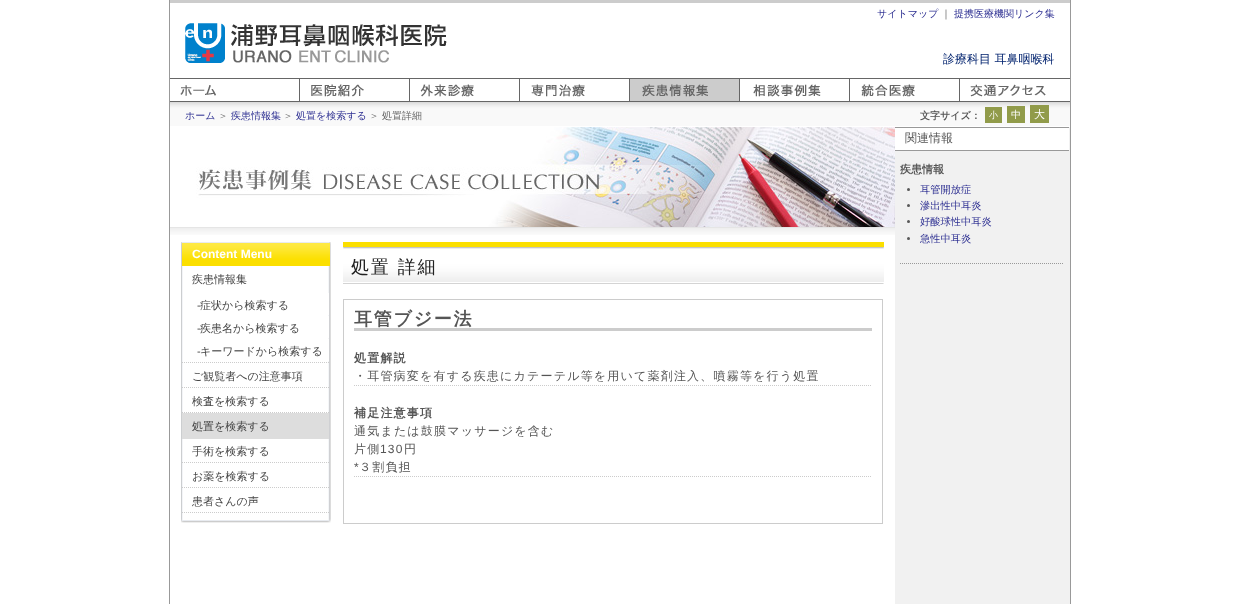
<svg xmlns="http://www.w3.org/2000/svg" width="1239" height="604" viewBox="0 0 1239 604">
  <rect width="100%" height="100%" fill="rgb(255,255,255)"/>
  <rect x="1070" y="0" width="1" height="604" fill="rgb(153,153,153)"/>
  <rect x="169" y="0" width="1" height="604" fill="rgb(153,153,153)"/>
  <text x="877" y="17" font-family="WenQuanYi Zen Hei" font-size="10" font-weight="500" fill="rgb(46,48,146)">サイトマップ</text>
  <text x="941" y="17" font-family="WenQuanYi Zen Hei" font-size="10" font-weight="500" fill="rgb(85,85,85)">｜</text>
  <text x="954" y="17" font-family="WenQuanYi Zen Hei" font-size="10" font-weight="500" fill="rgb(46,48,146)">提携医療機関リンク集</text>
  <rect x="170" y="0" width="900" height="3" fill="rgb(204,204,204)"/>
  <image x="185" y="23" width="262" height="40" href="pic1.png"/>
  <text x="943" y="63" font-family="WenQuanYi Zen Hei" font-size="12" font-weight="500" fill="rgb(1,34,110)">診療科目 耳鼻咽喉科</text>
  <image x="170" y="78" width="129" height="24" href="pic2.png"/>
  <image x="299" y="78" width="110" height="24" href="pic3.png"/>
  <image x="409" y="78" width="110" height="24" href="pic4.png"/>
  <image x="519" y="78" width="110" height="24" href="pic5.png"/>
  <image x="629" y="78" width="110" height="24" href="pic6.png"/>
  <image x="739" y="78" width="110" height="24" href="pic7.png"/>
  <image x="849" y="78" width="110" height="24" href="pic8.png"/>
  <image x="959" y="78" width="111" height="24" href="pic9.png"/>
  <image x="170" y="102" width="900" height="24" href="pic10.png"/>
  <text x="185" y="119" font-family="WenQuanYi Zen Hei" font-size="10" font-weight="500" fill="rgb(46,48,146)">ホーム</text>
  <text x="218" y="119" font-family="WenQuanYi Zen Hei" font-size="10" font-weight="500" fill="rgb(102,102,102)">＞</text>
  <text x="231" y="119" font-family="WenQuanYi Zen Hei" font-size="10" font-weight="500" fill="rgb(46,48,146)">疾患情報集</text>
  <text x="283" y="119" font-family="WenQuanYi Zen Hei" font-size="10" font-weight="500" fill="rgb(102,102,102)">＞</text>
  <text x="296" y="119" font-family="WenQuanYi Zen Hei" font-size="10" font-weight="500" fill="rgb(46,48,146)">処置を検索する</text>
  <text x="369" y="119" font-family="WenQuanYi Zen Hei" font-size="10" font-weight="500" fill="rgb(102,102,102)">＞ 処置詳細</text>
  <text x="920" y="119" font-family="WenQuanYi Zen Hei" font-size="10" font-weight="bold" fill="rgb(85,85,85)">文字サイズ：</text>
  <rect x="985" y="107" width="17" height="16" fill="rgb(145,155,74)"/>
  <text x="989" y="118" font-family="WenQuanYi Zen Hei" font-size="9" font-weight="500" fill="rgb(255,255,255)">小</text>
  <rect x="1007" y="106" width="18" height="17" fill="rgb(145,155,74)"/>
  <text x="1011" y="118" font-family="WenQuanYi Zen Hei" font-size="10" font-weight="500" fill="rgb(255,255,255)">中</text>
  <rect x="1030" y="105" width="19" height="18" fill="rgb(145,155,74)"/>
  <text x="1034" y="118" font-family="WenQuanYi Zen Hei" font-size="11" font-weight="500" fill="rgb(255,255,255)">大</text>
  <rect x="895" y="127" width="175" height="477" fill="rgb(241,241,241)"/>
  <rect x="895" y="128" width="174" height="22" fill="rgb(255,255,255)"/>
  <rect x="895" y="127" width="174" height="1" fill="rgb(153,153,153)"/>
  <rect x="895" y="150" width="174" height="1" fill="rgb(153,153,153)"/>
  <text x="905" y="142" font-family="WenQuanYi Zen Hei" font-size="12" font-weight="500" fill="rgb(85,85,85)">関連情報</text>
  <path d="M900 263.5H1064" fill="none" stroke="rgb(153,153,153)" stroke-dasharray="1 1"/>
  <text x="900" y="173" font-family="WenQuanYi Zen Hei" font-size="11" font-weight="bold" fill="rgb(85,85,85)">疾患情報</text>
  <circle cx="908.5" cy="189.5" r="1.5" fill="rgb(88,88,88)"/>
  <text x="920" y="193" font-family="WenQuanYi Zen Hei" font-size="10.25" font-weight="500" fill="rgb(46,48,146)">耳管開放症</text>
  <circle cx="908.5" cy="205.5" r="1.5" fill="rgb(88,88,88)"/>
  <text x="920" y="209" font-family="WenQuanYi Zen Hei" font-size="10.25" font-weight="500" fill="rgb(46,48,146)">滲出性中耳炎</text>
  <circle cx="908.5" cy="221.5" r="1.5" fill="rgb(88,88,88)"/>
  <text x="920" y="225" font-family="WenQuanYi Zen Hei" font-size="10.25" font-weight="500" fill="rgb(46,48,146)">好酸球性中耳炎</text>
  <circle cx="908.5" cy="238.5" r="1.5" fill="rgb(88,88,88)"/>
  <text x="920" y="242" font-family="WenQuanYi Zen Hei" font-size="10.25" font-weight="500" fill="rgb(46,48,146)">急性中耳炎</text>
  <image x="170" y="227" width="725" height="8" href="pic11.png"/>
  <image x="196" y="127" width="699" height="100" href="pic12.png"/>
  <image x="181" y="515" width="150" height="8" href="pic13.png"/>
  <image x="181" y="242" width="150" height="24" href="pic14.png"/>
  <text x="192" y="258" font-family="Liberation Sans" font-size="12" font-weight="bold" fill="rgb(255,255,255)">Content Menu</text>
  <image x="181" y="266" width="150" height="249" href="pic15.png"/>
  <path d="M182 362.5H329" fill="none" stroke="rgb(204,204,204)" stroke-dasharray="1 1"/>
  <text x="192" y="283" font-family="WenQuanYi Zen Hei" font-size="11" font-weight="500" fill="rgb(68,68,68)">疾患情報集</text>
  <rect x="328" y="293" width="1" height="22" fill="rgb(255,255,255)"/>
  <text x="197" y="309" font-family="Liberation Sans" font-size="11" fill="rgb(68,68,68)">-</text>
  <text x="200" y="309" font-family="WenQuanYi Zen Hei" font-size="11" font-weight="500" fill="rgb(68,68,68)">症状から検索する</text>
  <rect x="328" y="316" width="1" height="22" fill="rgb(255,255,255)"/>
  <text x="197" y="332" font-family="Liberation Sans" font-size="11" fill="rgb(68,68,68)">-</text>
  <text x="200" y="332" font-family="WenQuanYi Zen Hei" font-size="11" font-weight="500" fill="rgb(68,68,68)">疾患名から検索する</text>
  <rect x="328" y="339" width="1" height="22" fill="rgb(255,255,255)"/>
  <text x="197" y="355" font-family="Liberation Sans" font-size="11" fill="rgb(68,68,68)">-</text>
  <text x="200" y="355" font-family="WenQuanYi Zen Hei" font-size="11" font-weight="500" fill="rgb(68,68,68)">キーワードから検索する</text>
  <path d="M182 387.5H329" fill="none" stroke="rgb(204,204,204)" stroke-dasharray="1 1"/>
  <text x="192" y="380" font-family="WenQuanYi Zen Hei" font-size="11" font-weight="500" fill="rgb(68,68,68)">ご観覧者への注意事項</text>
  <path d="M182 412.5H329" fill="none" stroke="rgb(204,204,204)" stroke-dasharray="1 1"/>
  <text x="192" y="405" font-family="WenQuanYi Zen Hei" font-size="11" font-weight="500" fill="rgb(68,68,68)">検査を検索する</text>
  <rect x="182" y="413" width="147" height="26" fill="rgb(221,221,221)"/>
  <text x="192" y="430" font-family="WenQuanYi Zen Hei" font-size="11" font-weight="500" fill="rgb(68,68,68)">処置を検索する</text>
  <path d="M182 462.5H329" fill="none" stroke="rgb(204,204,204)" stroke-dasharray="1 1"/>
  <text x="192" y="455" font-family="WenQuanYi Zen Hei" font-size="11" font-weight="500" fill="rgb(68,68,68)">手術を検索する</text>
  <path d="M182 487.5H329" fill="none" stroke="rgb(204,204,204)" stroke-dasharray="1 1"/>
  <text x="192" y="480" font-family="WenQuanYi Zen Hei" font-size="11" font-weight="500" fill="rgb(68,68,68)">お薬を検索する</text>
  <path d="M182 512.5H329" fill="none" stroke="rgb(204,204,204)" stroke-dasharray="1 1"/>
  <text x="192" y="505" font-family="WenQuanYi Zen Hei" font-size="11" font-weight="500" fill="rgb(68,68,68)">患者さんの声</text>
  <image x="343" y="242" width="541" height="42" href="pic16.png"/>
  <text x="351" y="273" font-family="WenQuanYi Zen Hei" font-size="18" font-weight="500" letter-spacing="1.75" fill="rgb(34,34,34)">処置 詳細</text>
  <rect x="343.5" y="299.5" width="539" height="224" fill="none" stroke="rgb(204,204,204)"/>
  <text x="354" y="325" font-family="WenQuanYi Zen Hei" font-size="18" font-weight="bold" letter-spacing="1.75" fill="rgb(85,85,85)">耳管ブジー法</text>
  <rect x="354" y="328" width="518" height="3" fill="rgb(204,204,204)"/>
  <text x="354" y="362" font-family="WenQuanYi Zen Hei" font-size="12" font-weight="bold" letter-spacing="1.2" fill="rgb(85,85,85)">処置解説</text>
  <text x="354" y="380" font-family="WenQuanYi Zen Hei" font-size="12" font-weight="500" letter-spacing="1.2" fill="rgb(85,85,85)">・耳管病変を有する疾患にカテーテル等を用いて薬剤注入、噴霧等を行う処置</text>
  <path d="M354 385.5H872" fill="none" stroke="rgb(204,204,204)" stroke-dasharray="1 1"/>
  <text x="354" y="417" font-family="WenQuanYi Zen Hei" font-size="12" font-weight="bold" letter-spacing="1.2" fill="rgb(85,85,85)">補足注意事項</text>
  <g font-family="WenQuanYi Zen Hei" font-size="12" font-weight="500" letter-spacing="1.2" fill="rgb(85,85,85)">
    <text>
      <tspan x="354" y="435">通気または鼓膜マッサージを含む</tspan>
      <tspan x="354" y="453">片側</tspan>
    </text>
  </g>
  <text x="380" y="453" font-family="Liberation Sans" font-size="12" letter-spacing="1.2" fill="rgb(85,85,85)">130</text>
  <text x="404" y="453" font-family="WenQuanYi Zen Hei" font-size="12" font-weight="500" letter-spacing="1.2" fill="rgb(85,85,85)">円</text>
  <text x="354" y="471" font-family="Liberation Sans" font-size="12" letter-spacing="1.2" fill="rgb(85,85,85)">*</text>
  <text x="359" y="471" font-family="WenQuanYi Zen Hei" font-size="12" font-weight="500" letter-spacing="1.2" fill="rgb(85,85,85)">３割負担</text>
  <path d="M354 476.5H872" fill="none" stroke="rgb(204,204,204)" stroke-dasharray="1 1"/>
</svg>
